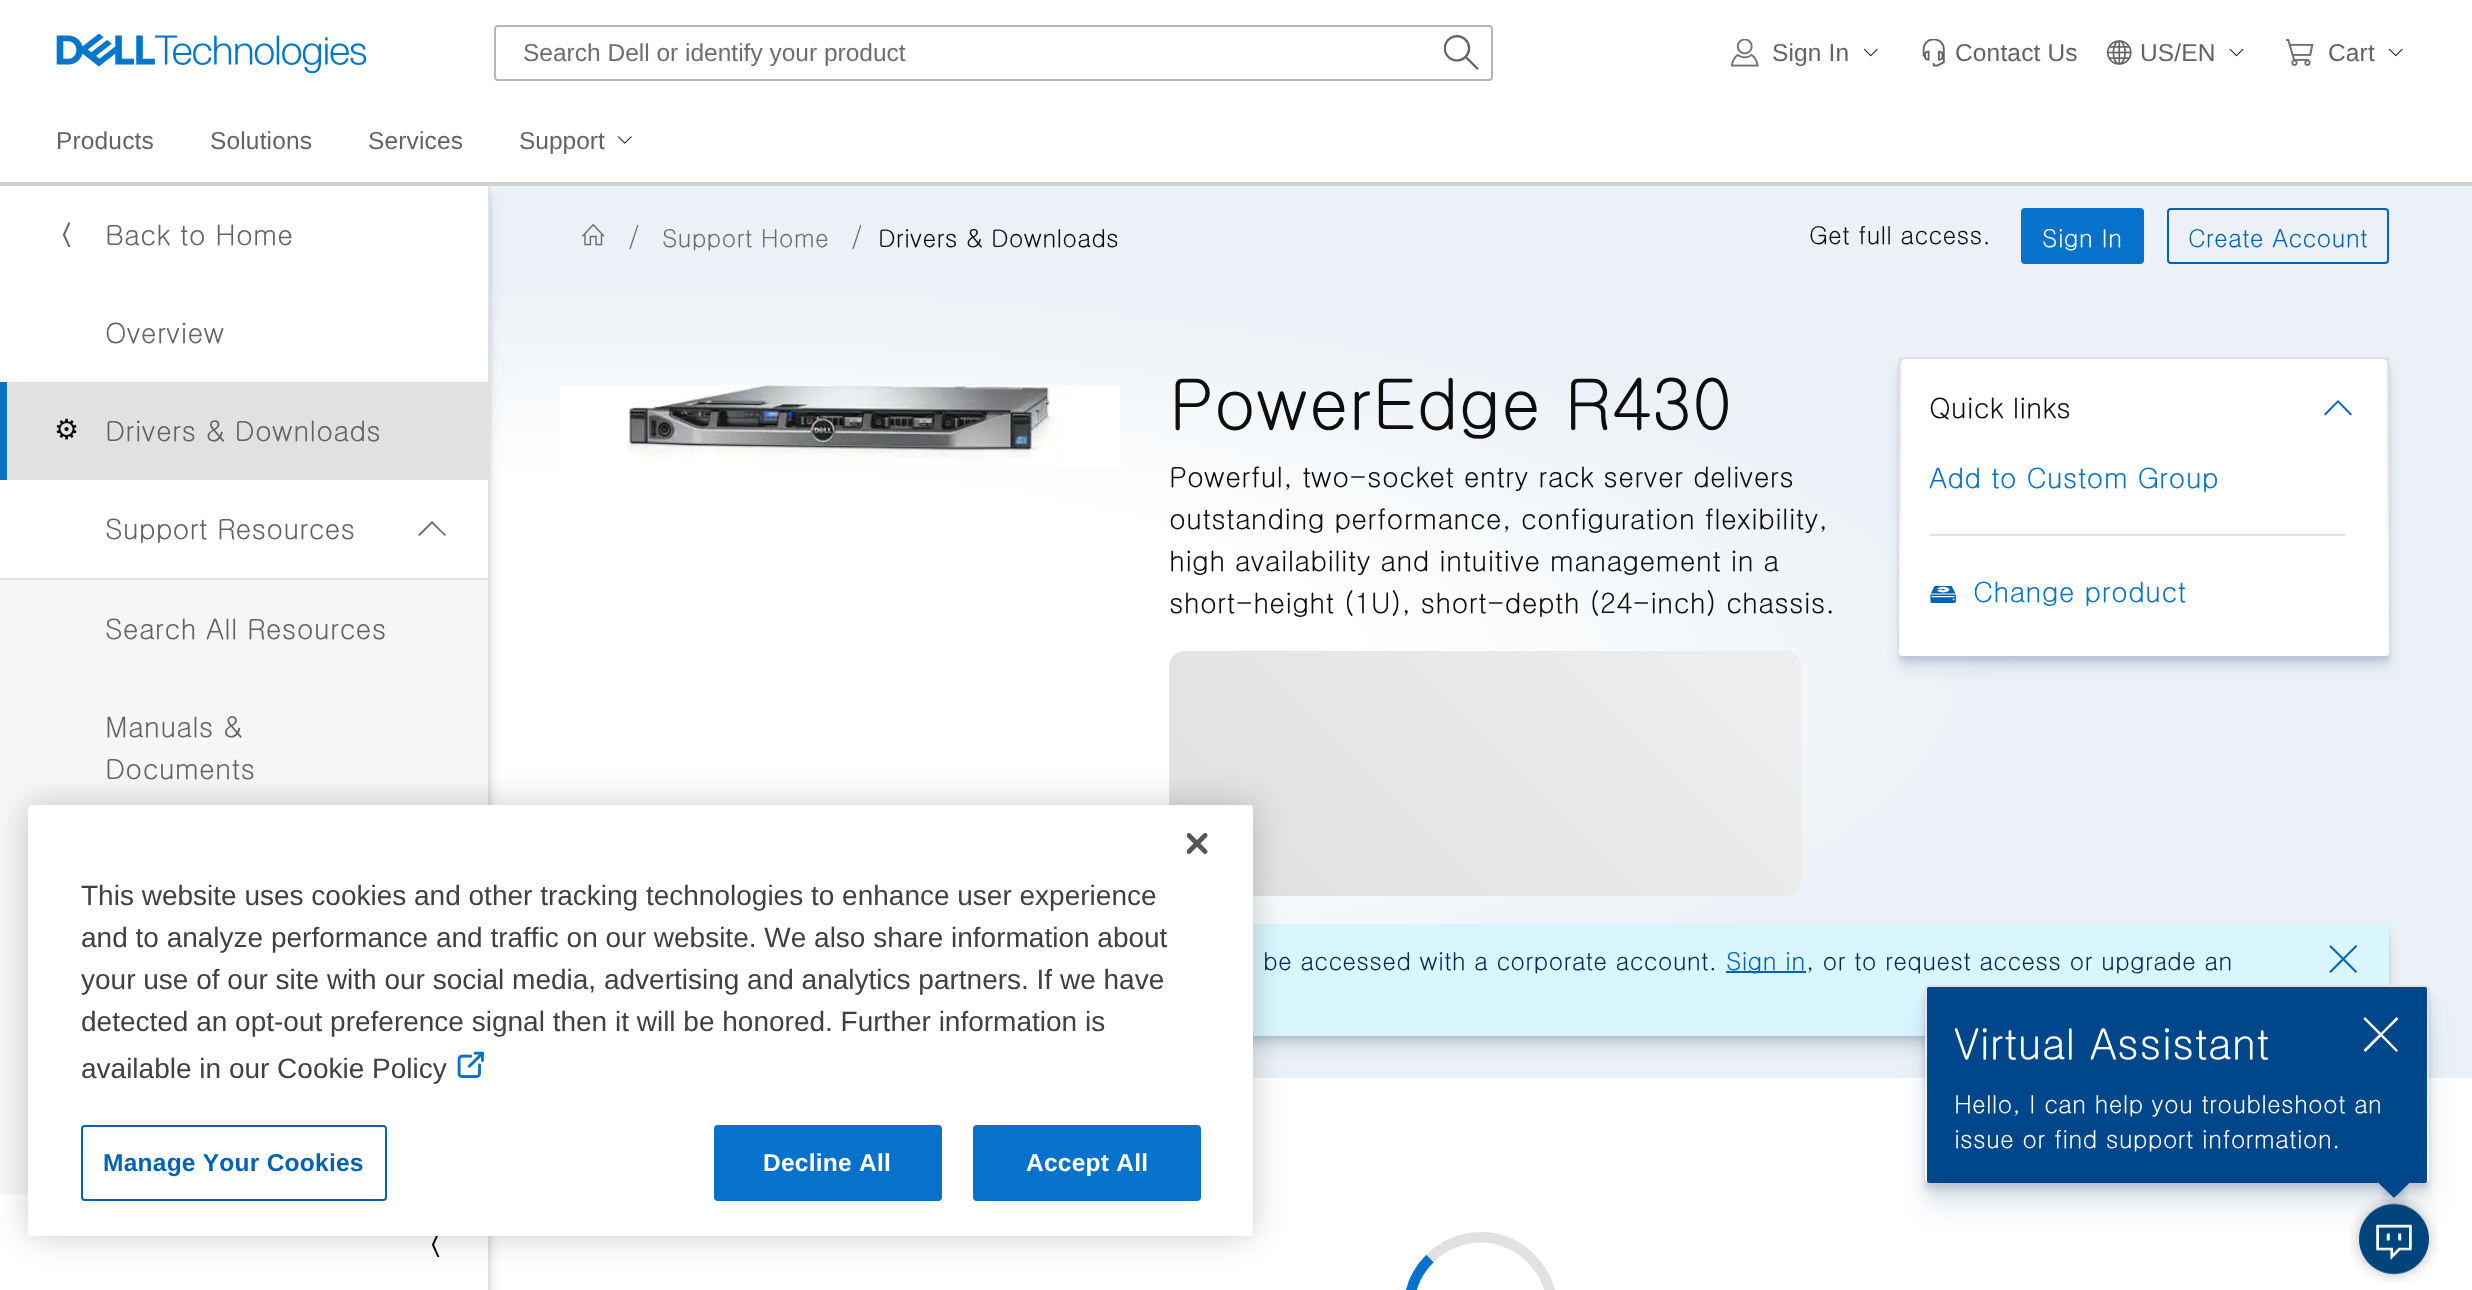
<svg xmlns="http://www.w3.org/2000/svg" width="2472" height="1290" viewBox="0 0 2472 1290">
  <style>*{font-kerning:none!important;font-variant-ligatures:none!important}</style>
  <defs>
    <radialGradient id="g1" gradientUnits="userSpaceOnUse" cx="0" cy="0" r="1" gradientTransform="matrix(1328 0 0 402 688 676)"><stop offset="0.5" stop-color="rgb(255,255,255)"/><stop offset="1" stop-color="rgb(235,241,246)"/></radialGradient>
    <linearGradient id="g2" gradientUnits="userSpaceOnUse" x1="1556" y1="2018" x2="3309" y2="264"><stop offset="0" stop-color="rgb(211,211,211)"/><stop offset="0.5" stop-color="rgb(241,241,241)"/><stop offset="1" stop-color="rgb(211,211,211)"/></linearGradient>
    <linearGradient id="g3" gradientUnits="userSpaceOnUse" x1="2144" y1="357" x2="2144" y2="656"><stop offset="0" stop-color="rgb(225,225,225)"/><stop offset="1" stop-color="rgb(255,255,255)"/></linearGradient>
    <linearGradient id="g4" gradientUnits="userSpaceOnUse" x1="2178" y1="986" x2="2178" y2="1183"><stop offset="0" stop-color="rgb(225,225,225)"/><stop offset="1" stop-color="rgb(255,255,255)"/></linearGradient>
    <clipPath id="clip1"><path d="M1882 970H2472V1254H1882ZM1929 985H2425C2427 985 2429 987 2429 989V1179C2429 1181 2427 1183 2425 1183H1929C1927 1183 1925 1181 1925 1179V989C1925 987 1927 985 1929 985Z" clip-rule="evenodd"/></clipPath>
    <clipPath id="clip2"><path d="M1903 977H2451V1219H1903ZM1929 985H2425C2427 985 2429 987 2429 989V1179C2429 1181 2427 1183 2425 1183H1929C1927 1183 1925 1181 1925 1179V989C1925 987 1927 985 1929 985Z" clip-rule="evenodd"/></clipPath>
    <clipPath id="clip3"><path d="M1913 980H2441V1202H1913ZM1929 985H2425C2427 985 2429 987 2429 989V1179C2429 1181 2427 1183 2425 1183H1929C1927 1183 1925 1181 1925 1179V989C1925 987 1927 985 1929 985Z" clip-rule="evenodd"/></clipPath>
    <clipPath id="clip4"><path d="M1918 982H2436V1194H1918ZM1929 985H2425C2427 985 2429 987 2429 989V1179C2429 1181 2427 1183 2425 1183H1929C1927 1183 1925 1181 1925 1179V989C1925 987 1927 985 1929 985Z" clip-rule="evenodd"/></clipPath>
    <clipPath id="clip5"><path d="M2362 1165H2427V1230H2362ZM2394 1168.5L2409 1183.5L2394 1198L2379 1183.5Z" clip-rule="evenodd"/></clipPath>
    <clipPath id="clip6"><path d="M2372 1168H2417V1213H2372ZM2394 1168.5L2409 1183.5L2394 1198L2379 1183.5Z" clip-rule="evenodd"/></clipPath>
    <clipPath id="clip7"><path d="M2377 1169H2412V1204H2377ZM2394 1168.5L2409 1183.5L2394 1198L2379 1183.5Z" clip-rule="evenodd"/></clipPath>
  </defs>
  <rect width="100%" height="100%" fill="rgb(255,255,255)"/>
  <rect x="490" y="186" width="1982" height="892" fill="url(#g1)"/>
  <rect x="0" y="200" width="490" height="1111" fill="rgba(0,42,88,0.08)" filter="blur(7px)"/>
  <rect x="0" y="193" width="490" height="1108" fill="rgba(0,42,88,0.08)" filter="blur(3.5px)"/>
  <rect x="0" y="189" width="490" height="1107" fill="rgba(0,42,88,0.08)" filter="blur(2px)"/>
  <rect x="0" y="182" width="2472" height="4" fill="rgb(210,210,210)"/>
  <image x="56" y="33" width="311" height="41" href="pic1.png"/>
  <rect x="495" y="26" width="997" height="54" rx="3" fill="none" stroke="rgb(182,182,182)" stroke-width="2"/>
  <text x="523" y="61" font-family="Liberation Sans" font-size="24.5" fill="rgb(110,110,110)">Search Dell or identify your product</text>
  <image x="1444" y="35" width="35" height="35" href="pic2.png"/>
  <image x="1731" y="39" width="28" height="28" href="pic3.png"/>
  <text x="1772" y="61" font-family="Liberation Sans" font-size="24.5" letter-spacing="0.15" fill="rgb(99,99,99)">Sign In</text>
  <image x="1863" y="48" width="15" height="9" href="pic4.png"/>
  <image x="1922" y="39" width="23" height="28" href="pic5.png"/>
  <text x="1955" y="61" font-family="Liberation Sans" font-size="24.5" letter-spacing="0.15" fill="rgb(99,99,99)">Contact Us</text>
  <image x="2106" y="40" width="26" height="25" href="pic6.png"/>
  <text x="2140" y="61" font-family="Liberation Sans" font-size="24.5" letter-spacing="0.15" fill="rgb(99,99,99)">US/EN</text>
  <image x="2229" y="48" width="15" height="9" href="pic7.png"/>
  <image x="2286" y="39" width="28" height="27" href="pic8.png"/>
  <text x="2328" y="61" font-family="Liberation Sans" font-size="24.5" letter-spacing="0.15" fill="rgb(99,99,99)">Cart</text>
  <image x="2388" y="48" width="15" height="9" href="pic4.png"/>
  <g font-family="Liberation Sans" font-size="24.5" letter-spacing="0.15" fill="rgb(99,99,99)">
    <text x="56" y="149">Products</text>
    <text x="210" y="149">Solutions</text>
    <text x="368" y="149">Services</text>
  </g>
  <text x="519" y="149" font-family="Liberation Sans" font-size="24.5" fill="rgb(99,99,99)">Support</text>
  <image x="617" y="136" width="15" height="8" href="pic9.png"/>
  <rect x="0" y="186" width="488" height="392" fill="rgb(255,255,255)"/>
  <rect x="488" y="186" width="2" height="619" fill="rgb(225,225,225)"/>
  <text x="62" y="243" font-family="FreeSans" font-size="28" letter-spacing="0.15" fill="rgb(99,99,99)">〈</text>
  <g font-family="Gulim" font-size="28" letter-spacing="0.15" fill="rgb(99,99,99)">
    <text x="105" y="245">Back to Home</text>
    <text x="105" y="343">Overview</text>
  </g>
  <rect x="7" y="382" width="481" height="98" fill="rgb(225,225,225)"/>
  <rect x="0" y="382" width="7" height="98" fill="rgb(6,114,203)"/>
  <text x="54" y="439" font-family="DejaVu Sans" font-size="28" letter-spacing="0.15" fill="rgb(14,14,14)">⚙</text>
  <text x="105" y="441" font-family="Gulim" font-size="28" letter-spacing="0.15" fill="rgb(99,99,99)">Drivers &amp; Downloads</text>
  <text x="105" y="539" font-family="Gulim" font-size="28" fill="rgb(99,99,99)">Support Resources</text>
  <path d="M419.5 536L432 523.5L445 536L446 535L432 521L418 535Z" fill="rgb(99,99,99)"/>
  <rect x="0" y="580" width="488" height="614" fill="rgb(245,246,247)"/>
  <rect x="0" y="578" width="488" height="2" fill="rgb(225,225,225)"/>
  <g font-family="Gulim" font-size="28" letter-spacing="0.15" fill="rgb(99,99,99)">
    <text x="105" y="639">Search All Resources</text>
    <text>
      <tspan x="105" y="737">Manuals &amp;</tspan>
      <tspan x="105" y="779">Documents</tspan>
    </text>
  </g>
  <rect x="0" y="1194" width="488" height="96" fill="rgb(255,255,255)"/>
  <rect x="488" y="1236" width="2" height="54" fill="rgb(225,225,225)"/>
  <text x="431" y="1253" font-family="FreeSans" font-size="28" fill="rgb(0,0,0)">〈</text>
  <image x="582" y="223" width="23" height="23" href="pic10.png"/>
  <text x="628" y="247" font-family="Gulim" font-size="28" letter-spacing="0.15" fill="rgb(110,110,110)">/</text>
  <text x="662" y="247" font-family="Gulim" font-size="24.5" letter-spacing="0.1" fill="rgb(110,110,110)">Support Home</text>
  <text x="851" y="247" font-family="Gulim" font-size="28" letter-spacing="0.15" fill="rgb(110,110,110)">/</text>
  <g font-family="Gulim" font-size="24.5" letter-spacing="0.1" fill="rgb(14,14,14)">
    <text x="878" y="247">Drivers &amp; Downloads</text>
    <text x="1809" y="244">Get full access.</text>
  </g>
  <rect x="2022" y="209" width="121" height="54" rx="3" fill="rgb(6,114,203)" stroke="rgb(6,114,203)" stroke-width="2"/>
  <text x="2042" y="247" font-family="Gulim" font-size="24.5" letter-spacing="0.15" fill="rgb(255,255,255)">Sign In</text>
  <rect x="2168" y="209" width="220" height="54" rx="3" fill="none" stroke="rgb(0,99,184)" stroke-width="2"/>
  <text x="2188" y="247" font-family="Gulim" font-size="24.5" letter-spacing="0.15" fill="rgb(0,99,184)">Create Account</text>
  <image x="560" y="385" width="560" height="82" href="pic11.png"/>
  <text x="1169" y="429" font-family="Gulim" font-size="70" letter-spacing="0.15" fill="rgb(14,14,14)">PowerEdge R430</text>
  <g font-family="Gulim" font-size="28" letter-spacing="0.15" fill="rgb(14,14,14)">
    <text>
      <tspan x="1169" y="487">Powerful, two-socket entry rack server delivers</tspan>
      <tspan x="1169" y="529">outstanding performance, configuration flexibility,</tspan>
      <tspan x="1169" y="571">high availability and intuitive management in a</tspan>
      <tspan x="1169" y="613">short-height (1U), short-depth (24-inch) chassis.</tspan>
    </text>
  </g>
  <rect x="1169" y="651" width="632" height="245" rx="16" fill="url(#g2)"/>
  <rect x="1899" y="371" width="490" height="299" fill="rgba(0,42,88,0.08)" filter="blur(7px)"/>
  <rect x="1899" y="364" width="490" height="299" fill="rgba(0,42,88,0.08)" filter="blur(3.5px)"/>
  <rect x="1899" y="361" width="490" height="299" fill="rgba(0,42,88,0.08)" filter="blur(2px)"/>
  <rect x="1900" y="358" width="488" height="297" fill="none" stroke="rgb(225,225,225)" stroke-width="2"/>
  <rect x="1899" y="357" width="490" height="299" rx="4" fill="url(#g3)"/>
  <path d="M1905 359H2383C2385 359 2387 361 2387 363V457H1901V363C1901 361 1903 359 1905 359Z" fill="rgb(255,255,255)"/>
  <text x="1929" y="418" font-family="Gulim" font-size="28" fill="rgb(14,14,14)">Quick links</text>
  <path d="M2325.5 415.5L2338 402.5L2350.5 415.5L2352 414L2338 400L2324 414Z" fill="rgb(0,99,184)"/>
  <path d="M1901 457H2387V651C2387 653 2385 655 2383 655H1905C1903 655 1901 653 1901 651Z" fill="rgb(255,255,255)"/>
  <text x="1929" y="488" font-family="Gulim" font-size="28" letter-spacing="0.15" fill="rgb(6,114,203)">Add to Custom Group</text>
  <rect x="1929" y="534" width="416" height="2" fill="rgb(225,225,225)"/>
  <text x="1929" y="603" font-family="'Noto Sans Symbols 2'" font-size="28" letter-spacing="0.15" fill="rgb(0,99,184)">🖴</text>
  <text x="1973" y="602" font-family="Gulim" font-size="28" letter-spacing="0.15" fill="rgb(6,114,203)">Change product</text>
  <rect x="574" y="938" width="1815" height="112" fill="rgba(0,42,88,0.08)" filter="blur(7px)"/>
  <rect x="574" y="931" width="1815" height="112" fill="rgba(0,42,88,0.08)" filter="blur(3.5px)"/>
  <rect x="574" y="928" width="1815" height="112" fill="rgba(0,42,88,0.08)" filter="blur(2px)"/>
  <rect x="1253" y="924" width="1136" height="112" fill="rgb(217,245,253)"/>
  <text x="1263" y="970" font-family="Gulim" font-size="24.5" letter-spacing="0.1" fill="rgb(0,42,88)">be accessed with a corporate account.</text>
  <rect x="1726" y="971" width="80" height="2" fill="rgb(0,99,184)"/>
  <text x="1726" y="970" font-family="Gulim" font-size="24.5" letter-spacing="0.1" fill="rgb(0,99,184)">Sign in</text>
  <text x="1806" y="970" font-family="Gulim" font-size="24.5" letter-spacing="0.1" fill="rgb(0,42,88)">, or to request access or upgrade an</text>
  <image x="2329" y="945" width="28" height="28" href="pic12.png"/>
  <path d="M1430 1258.5C1446.5 1241.5 1471 1234 1494.5 1238.5C1508.5 1241.5 1521.5 1248.5 1531 1258.5C1576 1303.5 1544 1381 1480.5 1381C1461.5 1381 1443 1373 1430 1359.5" fill="none" stroke="rgb(225,225,225)" stroke-width="10.5"/>
  <path d="M1430 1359.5C1402 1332 1402 1286 1430 1258.5" fill="none" stroke="rgb(6,114,203)" stroke-width="10.5"/>
  <rect x="1925" y="985" width="504" height="198" rx="4" fill="url(#g4)"/>
  <g clip-path="url(#clip1)">
    <rect x="1925" y="1013" width="504" height="198" rx="4" fill="rgba(0,42,88,0.08)" filter="blur(14px)"/>
  </g>
  <g clip-path="url(#clip2)">
    <rect x="1925" y="999" width="504" height="198" rx="4" fill="rgba(0,42,88,0.08)" filter="blur(7px)"/>
  </g>
  <g clip-path="url(#clip3)">
    <rect x="1925" y="992" width="504" height="198" rx="4" fill="rgba(0,42,88,0.08)" filter="blur(3.5px)"/>
  </g>
  <g clip-path="url(#clip4)">
    <rect x="1925" y="989" width="504" height="198" rx="4" fill="rgba(0,42,88,0.08)" filter="blur(2px)"/>
  </g>
  <path d="M2394 1168.5L2409 1183.5L2394 1198L2379 1183.5Z" fill="rgb(0,70,139)"/>
  <g clip-path="url(#clip5)">
    <rect x="2384" y="1187" width="21" height="21" fill="rgba(0,42,88,0.08)" filter="blur(7px)"/>
  </g>
  <g clip-path="url(#clip6)">
    <rect x="2384" y="1180" width="21" height="21" fill="rgba(0,42,88,0.08)" filter="blur(3.5px)"/>
  </g>
  <g clip-path="url(#clip7)">
    <rect x="2384" y="1176" width="21" height="21" fill="rgba(0,42,88,0.08)" filter="blur(2px)"/>
  </g>
  <rect x="1927" y="987" width="500" height="196" rx="2" fill="rgb(0,70,139)"/>
  <text x="1954" y="1059" font-family="Gulim" font-size="42" letter-spacing="0.25" fill="rgb(255,255,255)">Virtual Assistant</text>
  <path d="M2398.5 1019L2396.5 1017L2381 1033L2365 1017L2363.5 1019L2379 1034.5L2363.5 1050L2365.5 1052L2381 1036.5L2396.5 1052L2398 1050.5L2382.5 1034.5Z" fill="rgb(255,255,255)"/>
  <g font-family="Gulim" font-size="24.5" letter-spacing="0.1" fill="rgb(255,255,255)">
    <text>
      <tspan x="1954" y="1113">Hello, I can help you troubleshoot an</tspan>
      <tspan x="1954" y="1148">issue or find support information.</tspan>
    </text>
  </g>
  <image x="2350" y="1199" width="88" height="84" href="pic13.png"/>
  <rect x="28" y="805" width="1225" height="431" rx="4" fill="rgba(0,0,0,0.2)" filter="blur(16px)"/>
  <rect x="28" y="805" width="1225" height="431" rx="4" fill="rgb(255,255,255)"/>
  <image x="1187" y="833" width="21" height="21" href="pic14.png"/>
  <g font-family="Liberation Sans" font-size="28" fill="rgb(64,64,64)">
    <text>
      <tspan x="81" y="905">This website uses cookies and other tracking technologies to enhance user experience</tspan>
      <tspan x="81" y="947">and to analyze performance and traffic on our website. We also share information about</tspan>
      <tspan x="81" y="989">your use of our site with our social media, advertising and analytics partners. If we have</tspan>
      <tspan x="81" y="1031">detected an opt-out preference signal then it will be honored. Further information is</tspan>
      <tspan x="81" y="1078">available in our Cookie Policy</tspan>
    </text>
  </g>
  <image x="457" y="1051" width="27" height="27" href="pic15.png"/>
  <rect x="82" y="1126" width="304" height="74" rx="3" fill="none" stroke="rgb(0,99,184)" stroke-width="2"/>
  <text x="103" y="1171" font-family="Liberation Sans" font-size="24.5" font-weight="bold" letter-spacing="0.25" fill="rgb(0,99,184)">Manage Your Cookies</text>
  <rect x="715" y="1126" width="226" height="74" rx="3" fill="rgb(6,114,203)" stroke="rgb(6,114,203)" stroke-width="2"/>
  <text x="763" y="1171" font-family="Liberation Sans" font-size="24.5" font-weight="bold" letter-spacing="0.25" fill="rgb(255,255,255)">Decline All</text>
  <rect x="974" y="1126" width="226" height="74" rx="3" fill="rgb(6,114,203)" stroke="rgb(6,114,203)" stroke-width="2"/>
  <text x="1026" y="1171" font-family="Liberation Sans" font-size="24.5" font-weight="bold" letter-spacing="0.25" fill="rgb(255,255,255)">Accept All</text>
</svg>
